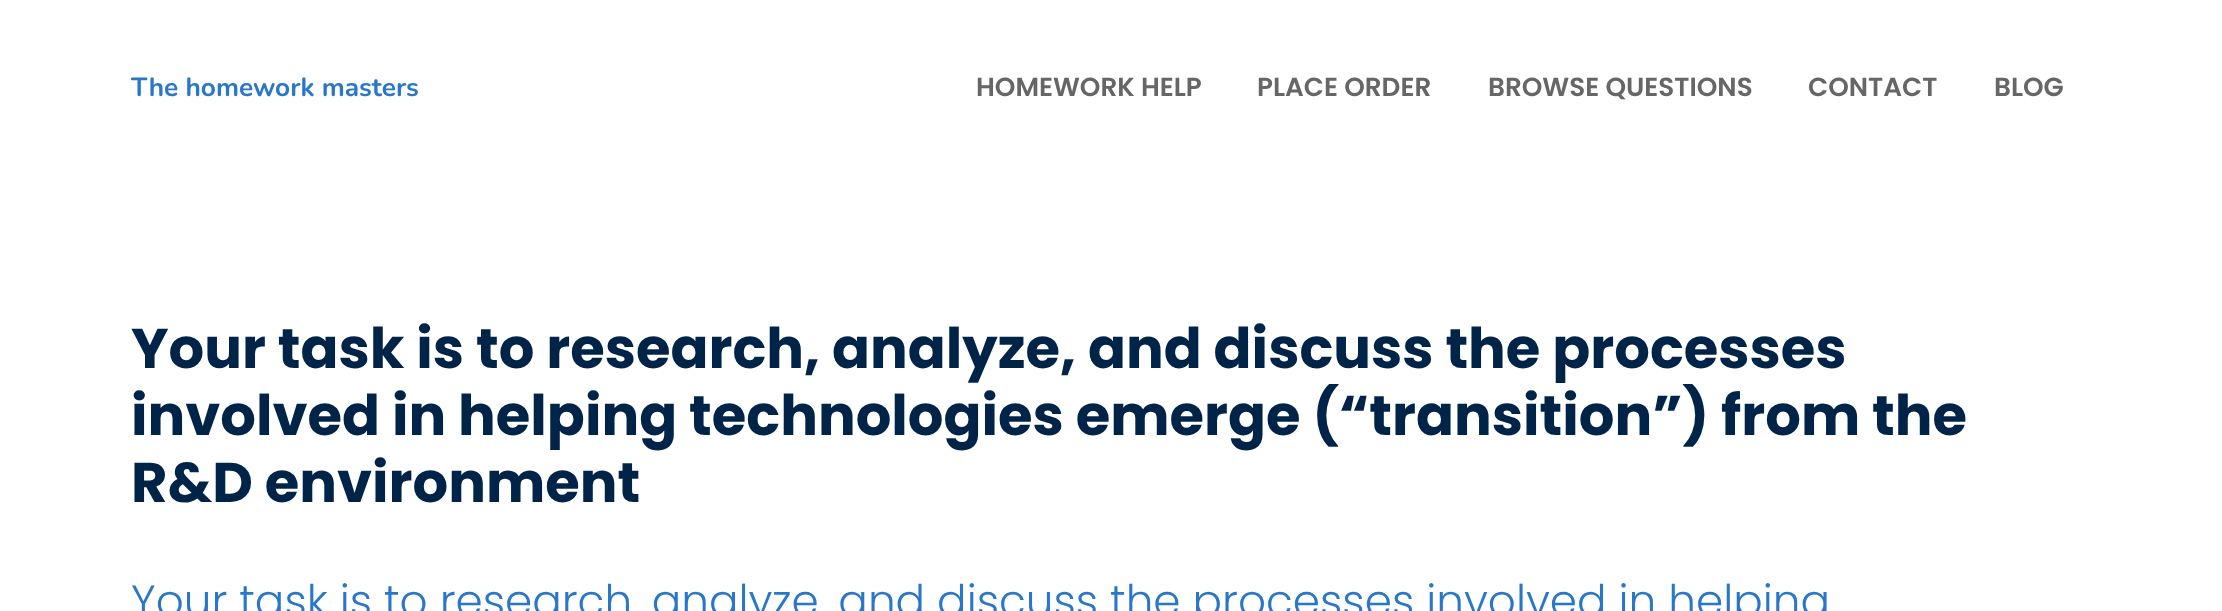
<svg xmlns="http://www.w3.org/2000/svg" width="2222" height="611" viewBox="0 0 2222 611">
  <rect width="100%" height="100%" fill="rgb(255,255,255)"/>
  <text x="131" y="96" font-family="Nunito" font-size="26.25" font-weight="bold" fill="rgb(42,119,202)">The homework masters</text>
  <g font-family="Poppins" font-size="26.25" font-weight="600" fill="rgb(102,102,102)">
    <text x="976" y="96">HOMEWORK HELP</text>
    <text x="1257" y="96">PLACE ORDER</text>
    <text x="1488" y="96">BROWSE QUESTIONS</text>
    <text x="1808" y="96">CONTACT</text>
    <text x="1994" y="96">BLOG</text>
  </g>
  <g font-family="Poppins" font-size="56" font-weight="bold" fill="rgb(0,36,72)">
    <text>
      <tspan x="131" y="368">Your task is to research, analyze, and discuss the processes</tspan>
      <tspan x="131" y="435">involved in helping technologies emerge (“transition”) from the</tspan>
      <tspan x="131" y="502">R&amp;D environment</tspan>
    </text>
  </g>
  <text x="131" y="616" font-family="Poppins" font-size="43.75" font-weight="300" fill="rgb(42,119,202)">Your task is to research, analyze, and discuss the processes involved in helping</text>
</svg>
